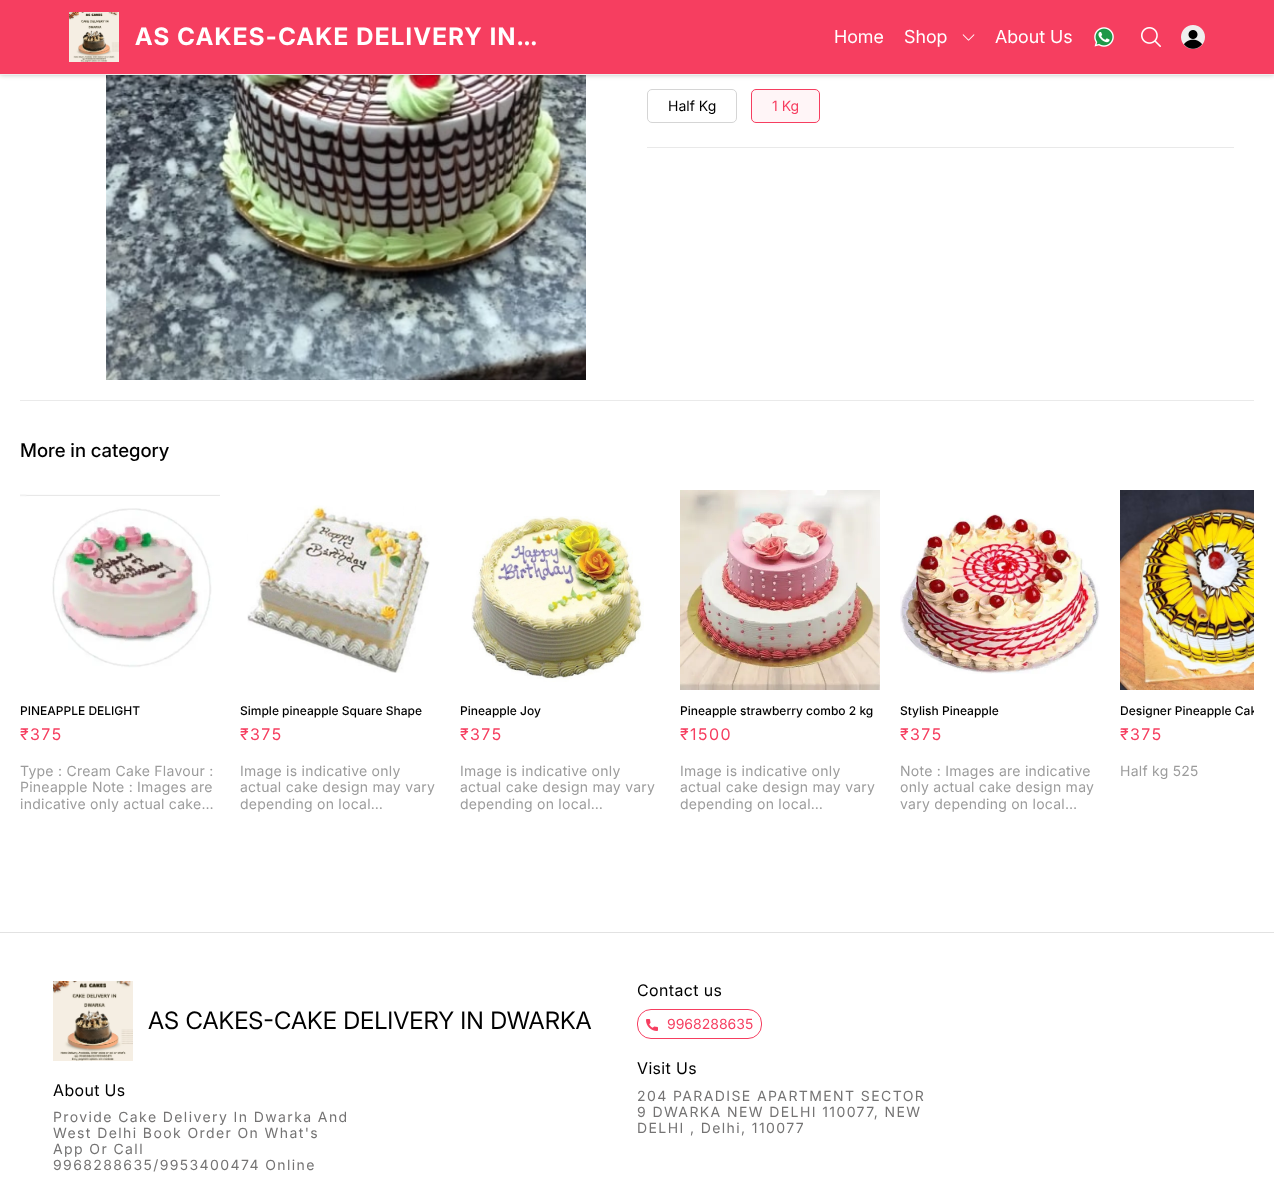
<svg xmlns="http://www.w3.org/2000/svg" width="1274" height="1177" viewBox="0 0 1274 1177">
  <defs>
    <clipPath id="clip1"><rect x="1120" y="702" width="134" height="18"/></clipPath>
  </defs>
  <rect width="100%" height="100%" fill="rgb(255,255,255)"/>
  <image x="106" y="75" width="480" height="305" href="pic6.png"/>
  <rect x="0" y="0" width="1274" height="75" fill="rgba(0,0,0,0.25)" filter="blur(2.5px)"/>
  <rect x="0" y="0" width="1274" height="74" fill="rgb(246,62,96)"/>
  <rect x="0" y="74" width="1274" height="1" fill="rgb(239,239,239)"/>
  <image x="69" y="12" width="50" height="50" href="pic1.png"/>
  <text x="135" y="45" font-family="Inter" font-size="24" font-weight="bold" letter-spacing="1.4" fill="rgb(255,255,255)">AS CAKES-CAKE DELIVERY IN…</text>
  <g font-family="'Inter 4'" font-size="18" fill="rgb(255,255,255)">
    <text x="834" y="43">Home</text>
    <text x="904" y="43">Shop</text>
  </g>
  <image x="962" y="34" width="13" height="7" href="pic2.png"/>
  <text x="995" y="43" font-family="'Inter 4'" font-size="18" fill="rgb(255,255,255)">About Us</text>
  <image x="1094" y="27" width="20" height="20" href="pic3.png"/>
  <image x="1141" y="27" width="20" height="20" href="pic4.png"/>
  <image x="1181" y="25" width="24" height="24" href="pic5.png"/>
  <rect x="647" y="147" width="587" height="1" fill="rgb(233,233,233)"/>
  <rect x="647.5" y="89.5" width="89" height="33" rx="4.5" fill="none" stroke="rgb(213,213,213)"/>
  <text x="668" y="111" font-family="'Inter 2'" font-size="14" fill="rgb(0,0,0)">Half Kg</text>
  <rect x="751.5" y="89.5" width="68" height="33" rx="4.5" fill="rgb(255,245,247)" stroke="rgb(246,62,96)"/>
  <text x="772" y="111" font-family="'Inter 2'" font-size="14" fill="rgb(246,62,96)">1 Kg</text>
  <rect x="20" y="400" width="1234" height="1" fill="rgb(234,234,234)"/>
  <text x="20" y="457" font-family="Inter" font-size="18.75" font-weight="500" fill="rgb(0,0,0)">More in category</text>
  <image x="20" y="494" width="200" height="174" href="pic7.png"/>
  <text x="20" y="715" font-family="'Inter 2'" font-size="12" font-weight="500" fill="rgb(0,0,0)">PINEAPPLE DELIGHT</text>
  <text x="20" y="740" font-family="'Inter 2'" font-size="16" letter-spacing="1.5" fill="rgb(246,62,96)">₹</text>
  <text x="30" y="740" font-family="Inter" font-size="16" letter-spacing="1.5" fill="rgb(246,62,96)">375</text>
  <g font-family="'Inter 2'" font-size="14" letter-spacing="0.25" fill="rgb(156,156,156)">
    <text>
      <tspan x="20" y="776">Type : Cream Cake Flavour :</tspan>
      <tspan x="20" y="792">Pineapple Note : Images are</tspan>
      <tspan x="20" y="809">indicative only actual cake…</tspan>
    </text>
  </g>
  <image x="247" y="505" width="183" height="168" href="pic8.png"/>
  <text x="240" y="715" font-family="'Inter 2'" font-size="12" font-weight="500" fill="rgb(0,0,0)">Simple pineapple Square Shape</text>
  <text x="240" y="740" font-family="'Inter 2'" font-size="16" letter-spacing="1.5" fill="rgb(246,62,96)">₹</text>
  <text x="250" y="740" font-family="Inter" font-size="16" letter-spacing="1.5" fill="rgb(246,62,96)">375</text>
  <g font-family="'Inter 2'" font-size="14" letter-spacing="0.25" fill="rgb(156,156,156)">
    <text>
      <tspan x="240" y="776">Image is indicative only</tspan>
      <tspan x="240" y="792">actual cake design may vary</tspan>
      <tspan x="240" y="809">depending on local…</tspan>
    </text>
  </g>
  <image x="471" y="516" width="173" height="166" href="pic9.png"/>
  <text x="460" y="715" font-family="'Inter 2'" font-size="12" font-weight="500" fill="rgb(0,0,0)">Pineapple Joy</text>
  <text x="460" y="740" font-family="'Inter 2'" font-size="16" letter-spacing="1.5" fill="rgb(246,62,96)">₹</text>
  <text x="470" y="740" font-family="Inter" font-size="16" letter-spacing="1.5" fill="rgb(246,62,96)">375</text>
  <g font-family="'Inter 2'" font-size="14" letter-spacing="0.25" fill="rgb(156,156,156)">
    <text>
      <tspan x="460" y="776">Image is indicative only</tspan>
      <tspan x="460" y="792">actual cake design may vary</tspan>
      <tspan x="460" y="809">depending on local…</tspan>
    </text>
  </g>
  <image x="680" y="490" width="200" height="200" href="pic10.png"/>
  <text x="680" y="715" font-family="'Inter 2'" font-size="12" font-weight="500" fill="rgb(0,0,0)">Pineapple strawberry combo 2 kg</text>
  <text x="680" y="740" font-family="'Inter 2'" font-size="16" letter-spacing="1.5" fill="rgb(246,62,96)">₹</text>
  <text x="690" y="740" font-family="Inter" font-size="16" letter-spacing="1.5" fill="rgb(246,62,96)">1500</text>
  <g font-family="'Inter 2'" font-size="14" letter-spacing="0.25" fill="rgb(156,156,156)">
    <text>
      <tspan x="680" y="776">Image is indicative only</tspan>
      <tspan x="680" y="792">actual cake design may vary</tspan>
      <tspan x="680" y="809">depending on local…</tspan>
    </text>
  </g>
  <image x="900" y="513" width="200" height="161" href="pic11.png"/>
  <text x="900" y="715" font-family="'Inter 2'" font-size="12" font-weight="500" fill="rgb(0,0,0)">Stylish Pineapple</text>
  <text x="900" y="740" font-family="'Inter 2'" font-size="16" letter-spacing="1.5" fill="rgb(246,62,96)">₹</text>
  <text x="910" y="740" font-family="Inter" font-size="16" letter-spacing="1.5" fill="rgb(246,62,96)">375</text>
  <g font-family="'Inter 2'" font-size="14" letter-spacing="0.25" fill="rgb(156,156,156)">
    <text>
      <tspan x="900" y="776">Note : Images are indicative</tspan>
      <tspan x="900" y="792">only actual cake design may</tspan>
      <tspan x="900" y="809">vary depending on local…</tspan>
    </text>
  </g>
  <image x="1120" y="490" width="134" height="200" href="pic12.png"/>
  <g clip-path="url(#clip1)">
    <text x="1120" y="715" font-family="'Inter 2'" font-size="12" font-weight="500" fill="rgb(0,0,0)">Designer Pineapple Cak</text>
  </g>
  <text x="1120" y="740" font-family="'Inter 2'" font-size="16" letter-spacing="1.5" fill="rgb(246,62,96)">₹</text>
  <text x="1130" y="740" font-family="Inter" font-size="16" letter-spacing="1.5" fill="rgb(246,62,96)">375</text>
  <text x="1120" y="776" font-family="'Inter 2'" font-size="14" letter-spacing="0.25" fill="rgb(156,156,156)">Half kg 525</text>
  <rect x="0" y="932" width="1274" height="1" fill="rgb(226,226,226)"/>
  <image x="53" y="981" width="80" height="80" href="pic13.png"/>
  <text x="148" y="1029" font-family="'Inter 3'" font-size="24" fill="rgb(0,0,0)">AS CAKES-CAKE DELIVERY IN DWARKA</text>
  <text x="53" y="1096" font-family="Inter" font-size="16" letter-spacing="0.4" fill="rgb(0,0,0)">About Us</text>
  <g font-family="'Inter 2'" font-size="14" letter-spacing="1.4" fill="rgb(116,115,115)">
    <text>
      <tspan x="53" y="1122">Provide Cake Delivery In Dwarka And</tspan>
      <tspan x="53" y="1138">West Delhi Book Order On What's</tspan>
      <tspan x="53" y="1154">App Or Call</tspan>
      <tspan x="53" y="1170">9968288635/9953400474 Online</tspan>
    </text>
  </g>
  <text x="637" y="996" font-family="Inter" font-size="16" letter-spacing="0.4" fill="rgb(0,0,0)">Contact us</text>
  <rect x="637.5" y="1009.5" width="124" height="29" rx="13.5" fill="none" stroke="rgb(246,62,96)"/>
  <image x="646" y="1019" width="12" height="12" href="pic14.png"/>
  <text x="667" y="1029" font-family="'Inter 2'" font-size="14" fill="rgb(246,62,96)">9968288635</text>
  <text x="637" y="1074" font-family="Inter" font-size="16" letter-spacing="0.4" fill="rgb(0,0,0)">Visit Us</text>
  <g font-family="'Inter 2'" font-size="14" letter-spacing="1.4" fill="rgb(116,115,115)">
    <text>
      <tspan x="637" y="1101">204 PARADISE APARTMENT SECTOR</tspan>
      <tspan x="637" y="1117">9 DWARKA NEW DELHI 110077, NEW</tspan>
      <tspan x="637" y="1133">DELHI , Delhi, 110077</tspan>
    </text>
  </g>
</svg>
